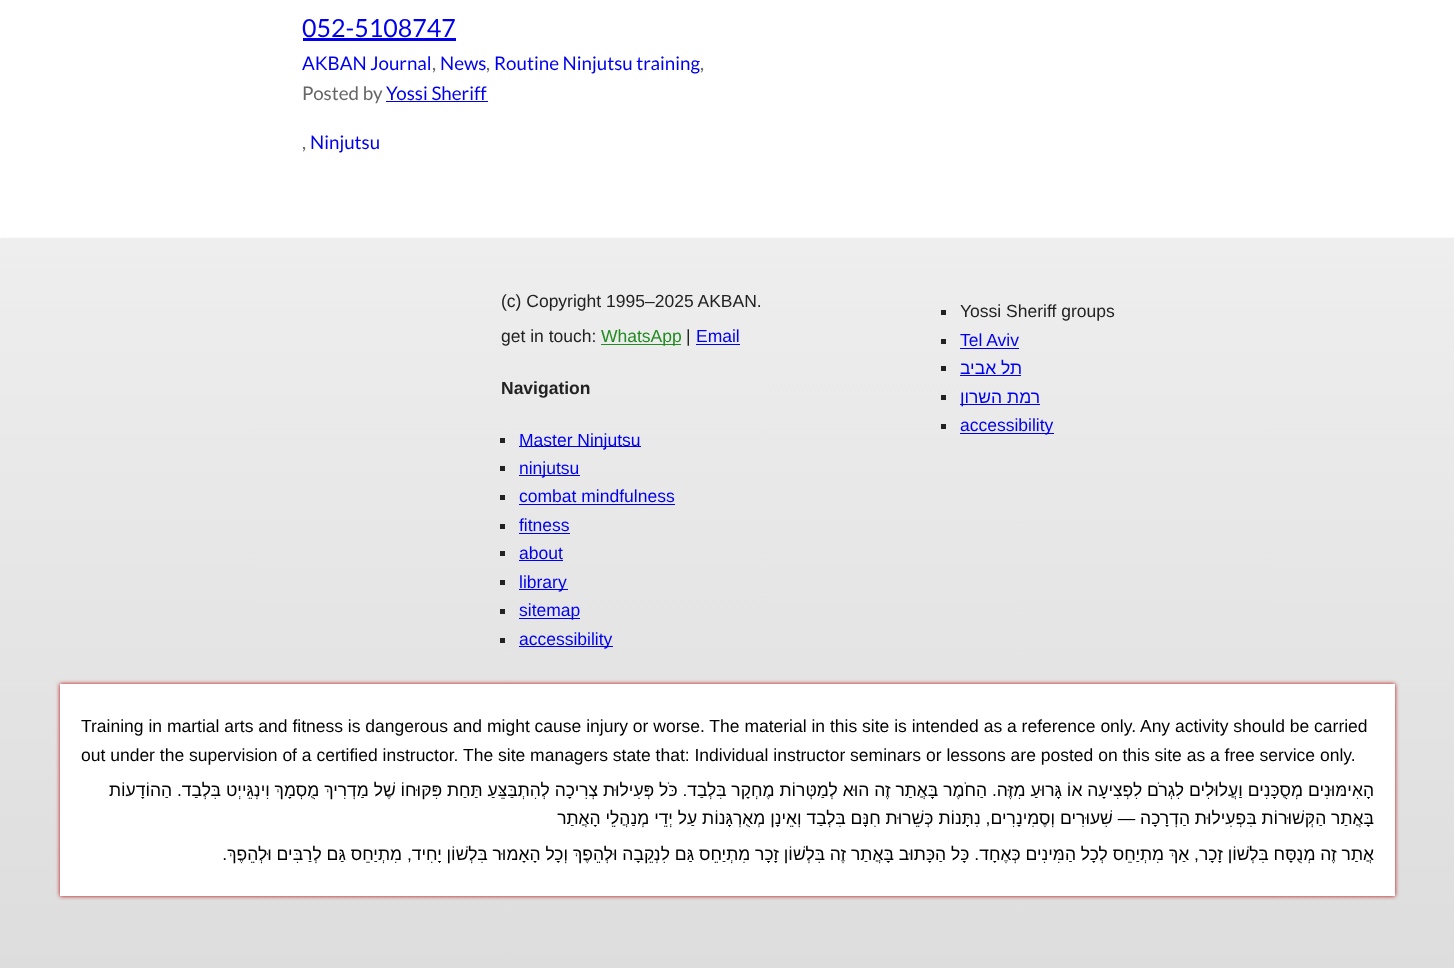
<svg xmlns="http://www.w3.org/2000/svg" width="1454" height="968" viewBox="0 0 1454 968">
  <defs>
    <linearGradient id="g1" gradientUnits="userSpaceOnUse" x1="728" y1="239" x2="728" y2="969"><stop offset="0" stop-color="rgb(238,238,238)"/><stop offset="1" stop-color="rgb(221,221,221)"/></linearGradient>
  </defs>
  <rect width="100%" height="100%" fill="rgb(255,255,255)"/>
  <text x="302" y="37" font-family="Lato" font-size="25" fill="rgb(0,0,238)">052-5108747</text>
  <rect x="303" y="38" width="153" height="3" fill="rgb(0,0,238)"/>
  <text x="700" y="70" font-family="Lato" font-size="18.75" fill="rgb(102,102,102)">,</text>
  <text x="494" y="70" font-family="Lato" font-size="18.75" fill="rgb(0,0,238)">Routine Ninjutsu training</text>
  <text x="486" y="70" font-family="Lato" font-size="18.75" fill="rgb(102,102,102)">,</text>
  <text x="440" y="70" font-family="Lato" font-size="18.75" fill="rgb(0,0,238)">News</text>
  <text x="432" y="70" font-family="Lato" font-size="18.75" fill="rgb(102,102,102)">,</text>
  <g font-family="Lato" font-size="18.75" fill="rgb(0,0,238)">
    <text x="302" y="70">AKBAN Journal</text>
    <text x="386" y="100">Yossi Sheriff</text>
  </g>
  <rect x="386" y="101" width="102" height="1" fill="rgb(0,0,238)"/>
  <text x="302" y="100" font-family="Lato" font-size="18.75" fill="rgb(102,102,102)">Posted by</text>
  <text x="310" y="149" font-family="Lato" font-size="18.75" fill="rgb(0,0,238)">Ninjutsu</text>
  <text x="302" y="149" font-family="Lato" font-size="18.75" fill="rgb(102,102,102)">,</text>
  <rect x="0" y="239" width="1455" height="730" fill="rgba(0,0,0,0.2)" filter="blur(1px)"/>
  <rect x="0" y="239" width="1454" height="729" fill="url(#g1)"/>
  <text x="960" y="317" font-family="Liberation Sans" font-size="17.5" fill="rgb(34,34,34)">Yossi Sheriff groups</text>
  <rect x="941" y="310" width="5" height="5" fill="rgb(34,34,34)"/>
  <text x="960" y="346" font-family="Liberation Sans" font-size="17.5" fill="rgb(0,0,238)">Tel Aviv</text>
  <rect x="960" y="348" width="59" height="1" fill="rgb(0,0,238)"/>
  <rect x="941" y="339" width="5" height="5" fill="rgb(34,34,34)"/>
  <text x="1022" y="374" font-family="Liberation Sans" font-size="17.5" direction="rtl" fill="rgb(0,0,238)">תל אביב</text>
  <rect x="960" y="375" width="61" height="1" fill="rgb(0,0,238)"/>
  <rect x="941" y="366" width="5" height="5" fill="rgb(34,34,34)"/>
  <rect x="960" y="404" width="80" height="1" fill="rgb(0,0,238)"/>
  <text x="1040" y="403" font-family="Liberation Sans" font-size="17.5" direction="rtl" fill="rgb(0,0,238)">רמת השרון</text>
  <rect x="941" y="395" width="5" height="5" fill="rgb(34,34,34)"/>
  <rect x="960" y="433" width="94" height="1" fill="rgb(0,0,238)"/>
  <text x="960" y="431" font-family="Liberation Sans" font-size="17.5" fill="rgb(0,0,238)">accessibility</text>
  <rect x="941" y="424" width="5" height="5" fill="rgb(34,34,34)"/>
  <text x="501" y="307" font-family="Liberation Sans" font-size="17.5" fill="rgb(34,34,34)">(c) Copyright 1995–2025 AKBAN.</text>
  <text x="696" y="342" font-family="Liberation Sans" font-size="17.5" fill="rgb(0,0,238)">Email</text>
  <rect x="696" y="344" width="44" height="1" fill="rgb(0,0,238)"/>
  <text x="686" y="342" font-family="Liberation Sans" font-size="17.5" fill="rgb(34,34,34)">|</text>
  <rect x="601" y="344" width="80" height="1" fill="rgb(34,139,34)"/>
  <text x="601" y="342" font-family="Liberation Sans" font-size="17.5" fill="rgb(34,139,34)">WhatsApp</text>
  <text x="501" y="342" font-family="Liberation Sans" font-size="17.5" fill="rgb(34,34,34)">get in touch:</text>
  <text x="501" y="394" font-family="Liberation Sans" font-size="17.5" font-weight="bold" fill="rgb(34,34,34)">Navigation</text>
  <rect x="519" y="446" width="122" height="1" fill="rgb(0,0,238)"/>
  <text x="519" y="446" font-family="Liberation Sans" font-size="17.5" fill="rgb(0,0,238)">Master Ninjutsu</text>
  <rect x="500" y="438" width="5" height="5" fill="rgb(34,34,34)"/>
  <rect x="519" y="475" width="61" height="1" fill="rgb(0,0,238)"/>
  <text x="519" y="474" font-family="Liberation Sans" font-size="17.5" fill="rgb(0,0,238)">ninjutsu</text>
  <rect x="500" y="466" width="5" height="5" fill="rgb(34,34,34)"/>
  <text x="519" y="502" font-family="Liberation Sans" font-size="17.5" fill="rgb(0,0,238)">combat mindfulness</text>
  <rect x="519" y="504" width="156" height="1" fill="rgb(0,0,238)"/>
  <rect x="500" y="495" width="5" height="5" fill="rgb(34,34,34)"/>
  <text x="519" y="531" font-family="Liberation Sans" font-size="17.5" fill="rgb(0,0,238)">fitness</text>
  <rect x="519" y="533" width="51" height="1" fill="rgb(0,0,238)"/>
  <rect x="500" y="524" width="5" height="5" fill="rgb(34,34,34)"/>
  <text x="519" y="559" font-family="Liberation Sans" font-size="17.5" fill="rgb(0,0,238)">about</text>
  <rect x="519" y="560" width="44" height="1" fill="rgb(0,0,238)"/>
  <rect x="500" y="551" width="5" height="5" fill="rgb(34,34,34)"/>
  <rect x="519" y="589" width="49" height="1" fill="rgb(0,0,238)"/>
  <text x="519" y="588" font-family="Liberation Sans" font-size="17.5" fill="rgb(0,0,238)">library</text>
  <rect x="500" y="580" width="5" height="5" fill="rgb(34,34,34)"/>
  <rect x="519" y="618" width="61" height="1" fill="rgb(0,0,238)"/>
  <text x="519" y="616" font-family="Liberation Sans" font-size="17.5" fill="rgb(0,0,238)">sitemap</text>
  <rect x="500" y="609" width="5" height="5" fill="rgb(34,34,34)"/>
  <rect x="519" y="646" width="94" height="1" fill="rgb(0,0,238)"/>
  <text x="519" y="645" font-family="Liberation Sans" font-size="17.5" fill="rgb(0,0,238)">accessibility</text>
  <rect x="500" y="638" width="5" height="5" fill="rgb(34,34,34)"/>
  <rect x="60" y="684" width="1335" height="212" fill="rgb(186,0,0)" filter="blur(2px)"/>
  <rect x="60" y="684" width="1335" height="212" fill="rgb(255,255,255)"/>
  <g font-family="Liberation Sans" font-size="17.5" fill="rgb(0,0,0)">
    <text>
      <tspan x="81" y="732">Training in martial arts and fitness is dangerous and might cause injury or worse. The material in this site is intended as a reference only. Any activity should be carried</tspan>
      <tspan x="81" y="761">out under the supervision of a certified instructor. The site managers state that: Individual instructor seminars or lessons are posted on this site as a free service only.</tspan>
    </text>
  </g>
  <g font-family="Liberation Sans" font-size="17.5" direction="rtl" fill="rgb(0,0,0)">
    <text>
      <tspan x="1374" y="796">הָאִימּוּנִים מְסֻכָּנִים וַעֲלוּלִים לִגְרֹם לִפְצִיעָה אוֹ גָּרוּעַ מִזֶּה. הַחֹמֶר בָּאֲתַר זֶה הוּא לְמַטְּרוֹת מֶחְקָר בִּלְבַד. כֹּל פְּעִילוּת צְרִיכָה לְהִתְבַּצֵּעַ תַּחַת פִּקּוּחוֹ שֶׁל מַדְרִיךְ מֻסְמָךְ וִינְגֵּייְט בִּלְבַד. הַהוֹדָעוֹת</tspan>
      <tspan x="1374" y="824">בָּאֲתַר הַקְּשׁוּרוֹת בִּפְעִילוּת הַדְרָכָה — שִׁעוּרִים וְסֶמִינָרִים, נִתָּנוֹת כְּשֵׁרוּת חִנָּם בִּלְבַד וְאֵינָן מְאֻרְגָּנוֹת עַל יְדֵי מְנַהֲלֵי הָאֲתַר</tspan>
    </text>
    <text x="1374" y="860">אֲתַר זֶה מְנֻסָּח בִּלְשׁוֹן זָכָר, אַךְ מִתְיַחֵס לְכָל הַמִּינִים כְּאֶחָד. כָּל הַכָּתוּב בָּאֲתַר זֶה בִּלְשׁוֹן זָכָר מִתְיַחֵס גַּם לִנְקֵבָה וּלְהֵפֶךְ וְכָל הָאָמוּר בִּלְשׁוֹן יָחִיד, מִתְיַחֵס גַּם לְרַבִּים וּלְהֵפֶךְ.</text>
  </g>
</svg>
